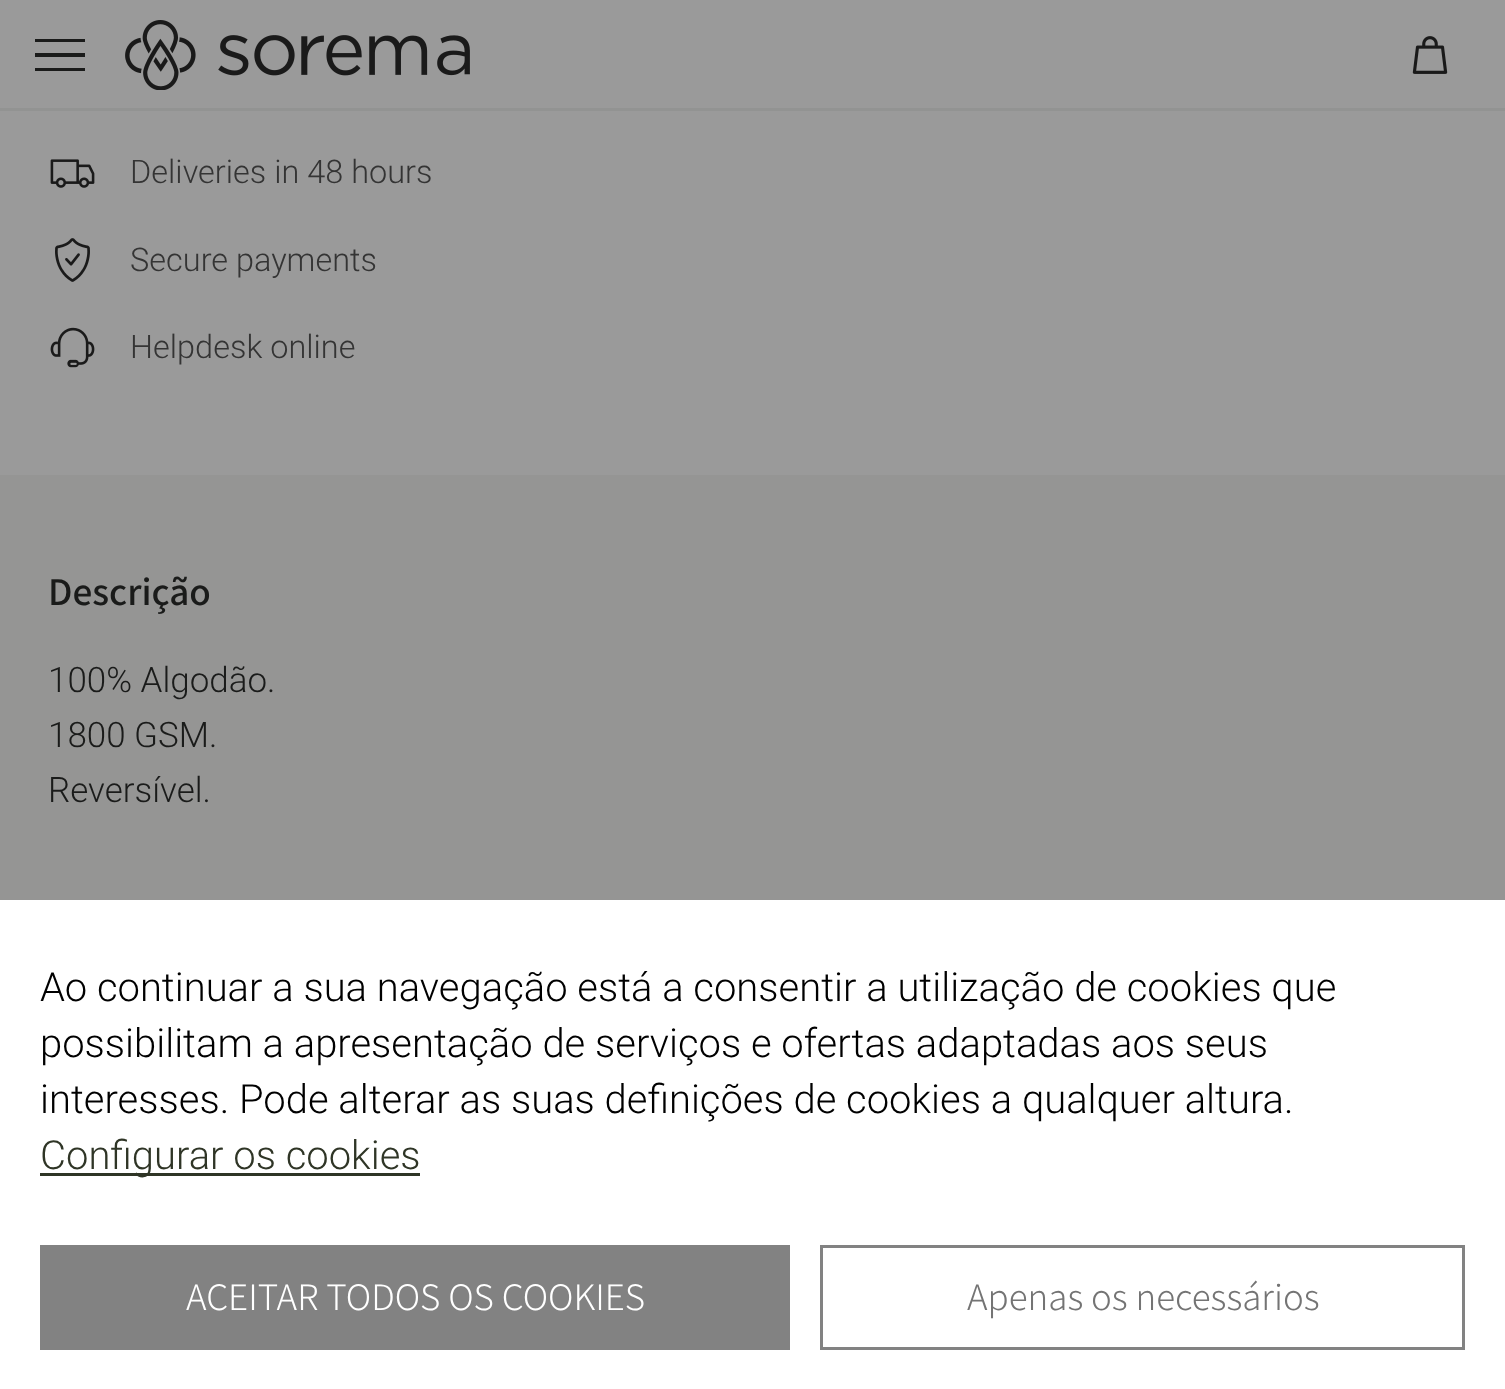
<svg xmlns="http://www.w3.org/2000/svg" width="1505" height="1389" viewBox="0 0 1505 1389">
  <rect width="100%" height="100%" fill="rgb(154,154,154)"/>
  <rect x="0" y="108" width="1505" height="3" fill="rgb(146,147,146)"/>
  <path d="M85 39V42H35V39ZM35 57H85V53H35ZM35 71H85V68H35Z" fill="rgb(26,27,26)"/>
  <image x="125" y="20" width="345" height="70" href="pic1.png"/>
  <image x="1412" y="36" width="36" height="38" href="pic2.png"/>
  <image x="50" y="159" width="45" height="29" href="pic3.png"/>
  <text x="130" y="183" font-family="Roboto" font-size="32.5" font-weight="300" fill="rgb(52,52,52)">Deliveries in 48 hours</text>
  <image x="55" y="238" width="35" height="44" href="pic4.png"/>
  <text x="130" y="271" font-family="Roboto" font-size="32.5" font-weight="300" fill="rgb(52,52,52)">Secure payments</text>
  <image x="50" y="327" width="45" height="41" href="pic5.png"/>
  <text x="130" y="358" font-family="Roboto" font-size="32.5" font-weight="300" fill="rgb(52,52,52)">Helpdesk online</text>
  <rect x="0" y="475" width="1505" height="425" fill="rgb(149,149,148)"/>
  <text x="48" y="605" font-family="Noto Sans JP" font-size="35" font-weight="500" fill="rgb(26,27,26)">Descrição</text>
  <g font-family="Roboto" font-size="35" font-weight="300" fill="rgb(26,27,26)">
    <text>
      <tspan x="48" y="692">100% Algodão.</tspan>
      <tspan x="48" y="747">1800 GSM.</tspan>
      <tspan x="48" y="802">Reversível.</tspan>
    </text>
  </g>
  <rect x="0" y="900" width="1505" height="489" fill="rgb(255,255,255)"/>
  <g font-family="Roboto" font-size="40" font-weight="300" fill="rgb(0,0,0)">
    <text>
      <tspan x="40" y="1001">Ao continuar a sua navegação está a consentir a utilização de cookies que</tspan>
      <tspan x="40" y="1057">possibilitam a apresentação de serviços e ofertas adaptadas aos seus</tspan>
      <tspan x="40" y="1113">interesses. Pode alterar as suas definições de cookies a qualquer altura.</tspan>
    </text>
  </g>
  <rect x="40" y="1173" width="380" height="3" fill="rgb(47,53,38)"/>
  <text x="40" y="1169" font-family="Roboto" font-size="40" font-weight="300" fill="rgb(47,53,38)">Configurar os cookies</text>
  <rect x="40" y="1245" width="750" height="105" fill="rgb(130,130,130)"/>
  <text x="186" y="1310" font-family="Noto Sans JP" font-size="35" font-weight="300" fill="rgb(255,255,255)">ACEITAR TODOS OS COOKIES</text>
  <rect x="821.5" y="1246.5" width="642" height="102" fill="none" stroke="rgb(130,130,130)" stroke-width="3"/>
  <text x="967" y="1310" font-family="Noto Sans JP" font-size="35" font-weight="300" fill="rgb(116,116,116)">Apenas os necessários</text>
</svg>
